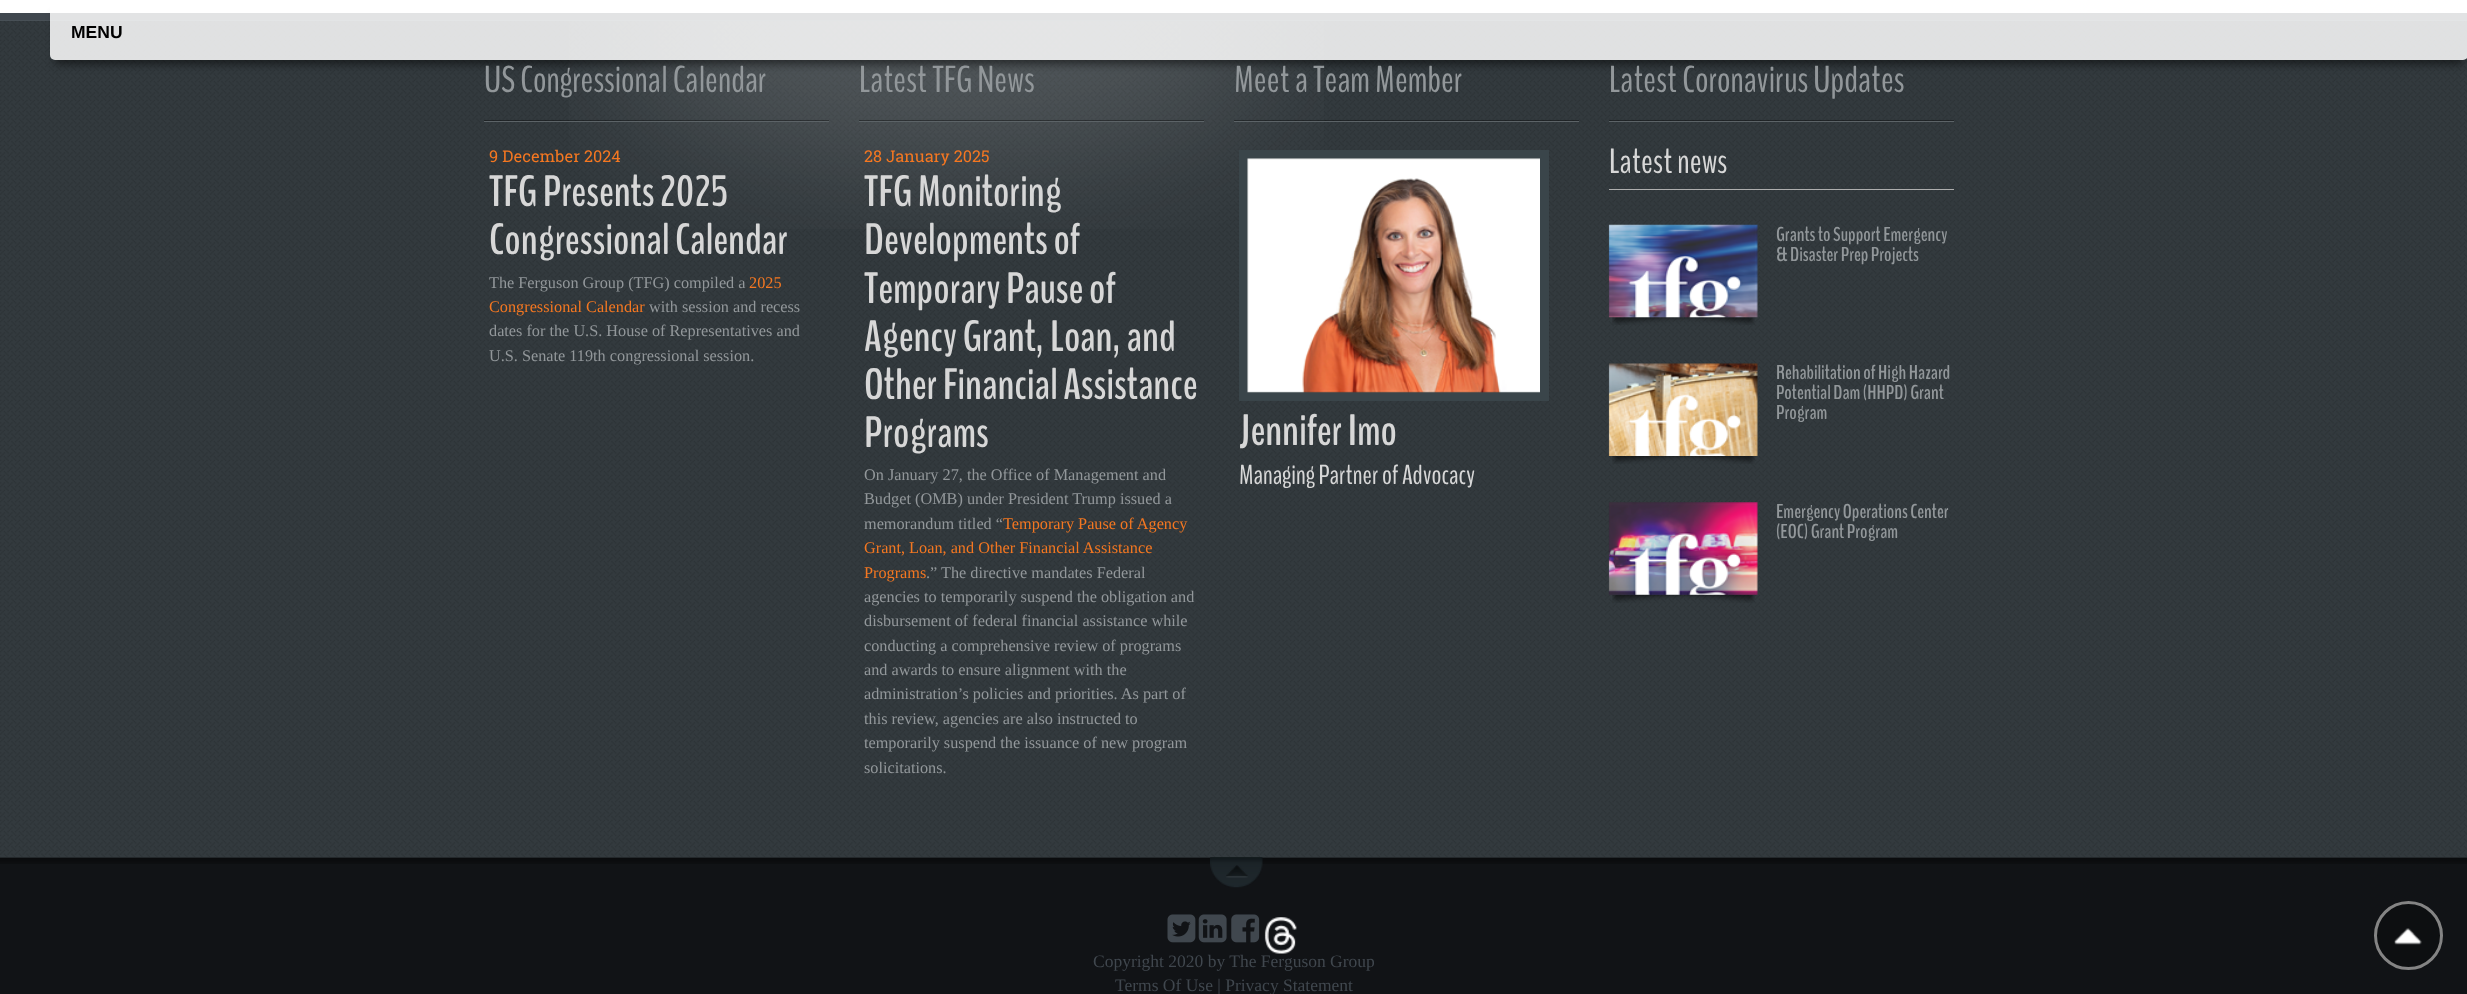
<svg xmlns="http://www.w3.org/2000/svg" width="2467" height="994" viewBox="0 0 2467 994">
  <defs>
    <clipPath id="clip1"><path d="M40 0H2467V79H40ZM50 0H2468V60H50Z" clip-rule="evenodd"/></clipPath>
  </defs>
  <rect width="100%" height="100%" fill="rgb(17,19,22)"/>
  <rect x="0" y="0" width="2467" height="13" fill="rgb(255,255,255)"/>
  <rect x="0" y="13" width="2467" height="7" fill="rgb(64,71,78)"/>
  <rect x="0" y="21" width="2467" height="837" fill="rgb(51,58,62)"/>
  <image x="0" y="21" width="2467" height="836" href="pic1.png"/>
  <rect x="0" y="20" width="2467" height="1" fill="rgb(72,80,86)"/>
  <image x="569" y="21" width="755" height="208" href="pic2.png"/>
  <g clip-path="url(#clip1)">
    <rect x="55" y="14" width="2408" height="50" fill="rgba(0,0,0,0.5)" filter="blur(4.5px)"/>
  </g>
  <rect x="50" y="0" width="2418" height="60" rx="5" fill="rgba(255,255,255,0.85)"/>
  <text x="71" y="38" font-family="Liberation Sans" font-size="17.5" font-weight="bold" fill="rgb(0,0,0)">MENU</text>
  <rect x="484" y="120" width="345" height="1" fill="rgba(0,0,0,0.35)"/>
  <rect x="484" y="121" width="345" height="1" fill="rgb(92,99,103)"/>
  <text x="484" y="92" font-family="BenchNine" font-size="37.5" fill="rgb(146,151,154)">US Congressional Calendar</text>
  <text x="489" y="162" font-family="Roboto Slab" font-size="16.25" fill="rgb(244,119,33)">9 December 2024</text>
  <g font-family="BenchNine" font-size="43.75" font-weight="bold" fill="rgb(215,215,215)">
    <text>
      <tspan x="489" y="206">TFG Presents 2025</tspan>
      <tspan x="489" y="254">Congressional Calendar</tspan>
    </text>
  </g>
  <text x="489" y="288" font-family="Liberation Serif" font-size="16.25" fill="rgb(146,151,154)">The Ferguson Group (TFG) compiled a</text>
  <g font-family="Liberation Serif" font-size="16.25" fill="rgb(244,119,33)">
    <text x="749" y="288">2025</text>
    <text x="489" y="312">Congressional Calendar</text>
  </g>
  <g font-family="Liberation Serif" font-size="16.25" fill="rgb(146,151,154)">
    <text x="649" y="312">with session and recess</text>
    <text>
      <tspan x="489" y="336">dates for the U.S. House of Representatives and</tspan>
      <tspan x="489" y="361">U.S. Senate 119th congressional session.</tspan>
    </text>
  </g>
  <rect x="859" y="120" width="345" height="1" fill="rgba(0,0,0,0.35)"/>
  <rect x="859" y="121" width="345" height="1" fill="rgb(92,99,103)"/>
  <text x="859" y="92" font-family="BenchNine" font-size="37.5" fill="rgb(146,151,154)">Latest TFG News</text>
  <text x="864" y="162" font-family="Roboto Slab" font-size="16.25" fill="rgb(244,119,33)">28 January 2025</text>
  <g font-family="BenchNine" font-size="43.75" font-weight="bold" fill="rgb(215,215,215)">
    <text>
      <tspan x="864" y="206">TFG Monitoring</tspan>
      <tspan x="864" y="254">Developments of</tspan>
      <tspan x="864" y="303">Temporary Pause of</tspan>
      <tspan x="864" y="351">Agency Grant, Loan, and</tspan>
      <tspan x="864" y="399">Other Financial Assistance</tspan>
      <tspan x="864" y="447">Programs</tspan>
    </text>
  </g>
  <g font-family="Liberation Serif" font-size="16.25" fill="rgb(146,151,154)">
    <text>
      <tspan x="864" y="480">On January 27, the Office of Management and</tspan>
      <tspan x="864" y="504">Budget (OMB) under President Trump issued a</tspan>
      <tspan x="864" y="529">memorandum titled “</tspan>
    </text>
  </g>
  <g font-family="Liberation Serif" font-size="16.25" fill="rgb(244,119,33)">
    <text x="1003" y="529">Temporary Pause of Agency</text>
    <text>
      <tspan x="864" y="553">Grant, Loan, and Other Financial Assistance</tspan>
      <tspan x="864" y="578">Programs</tspan>
    </text>
  </g>
  <g font-family="Liberation Serif" font-size="16.25" fill="rgb(146,151,154)">
    <text x="926" y="578">.” The directive mandates Federal</text>
    <text>
      <tspan x="864" y="602">agencies to temporarily suspend the obligation and</tspan>
      <tspan x="864" y="626">disbursement of federal financial assistance while</tspan>
      <tspan x="864" y="651">conducting a comprehensive review of programs</tspan>
      <tspan x="864" y="675">and awards to ensure alignment with the</tspan>
      <tspan x="864" y="699">administration’s policies and priorities. As part of</tspan>
      <tspan x="864" y="724">this review, agencies are also instructed to</tspan>
      <tspan x="864" y="748">temporarily suspend the issuance of new program</tspan>
      <tspan x="864" y="773">solicitations.</tspan>
    </text>
  </g>
  <rect x="1234" y="120" width="345" height="1" fill="rgba(0,0,0,0.35)"/>
  <rect x="1234" y="121" width="345" height="1" fill="rgb(92,99,103)"/>
  <text x="1234" y="92" font-family="BenchNine" font-size="37.5" fill="rgb(146,151,154)">Meet a Team Member</text>
  <rect x="1239" y="150" width="310" height="251" fill="rgb(58,69,74)"/>
  <image x="1247" y="158" width="293" height="235" href="pic3.png"/>
  <text x="1239" y="445" font-family="BenchNine" font-size="43.75" font-weight="bold" fill="rgb(215,215,215)">Jennifer Imo</text>
  <text x="1239" y="484" font-family="BenchNine" font-size="27.5" fill="rgb(215,215,215)">Managing Partner of Advocacy</text>
  <rect x="1609" y="120" width="345" height="1" fill="rgba(0,0,0,0.35)"/>
  <rect x="1609" y="121" width="345" height="1" fill="rgb(92,99,103)"/>
  <text x="1609" y="92" font-family="BenchNine" font-size="37.5" fill="rgb(146,151,154)">Latest Coronavirus Updates</text>
  <rect x="1609" y="189" width="345" height="1" fill="rgb(174,174,174)"/>
  <text x="1609" y="173" font-family="BenchNine" font-size="35" fill="rgb(215,215,215)">Latest news</text>
  <image x="1612" y="317" width="72" height="8" href="pic5.png"/>
  <image x="1684" y="317" width="71" height="8" href="pic6.png"/>
  <image x="1608" y="224" width="150" height="94" href="pic4.png"/>
  <g font-family="BenchNine" font-size="20" font-weight="bold" fill="rgb(146,151,154)">
    <text>
      <tspan x="1776" y="241">Grants to Support Emergency</tspan>
      <tspan x="1776" y="261">&amp; Disaster Prep Projects</tspan>
    </text>
  </g>
  <image x="1608" y="363" width="150" height="93" href="pic7.png"/>
  <image x="1612" y="456" width="72" height="8" href="pic8.png"/>
  <image x="1684" y="456" width="71" height="8" href="pic9.png"/>
  <g font-family="BenchNine" font-size="20" font-weight="bold" fill="rgb(146,151,154)">
    <text>
      <tspan x="1776" y="379">Rehabilitation of High Hazard</tspan>
      <tspan x="1776" y="399">Potential Dam (HHPD) Grant</tspan>
      <tspan x="1776" y="419">Program</tspan>
    </text>
  </g>
  <image x="1612" y="594" width="72" height="9" href="pic11.png"/>
  <image x="1684" y="594" width="71" height="9" href="pic12.png"/>
  <image x="1608" y="502" width="150" height="93" href="pic10.png"/>
  <g font-family="BenchNine" font-size="20" font-weight="bold" fill="rgb(146,151,154)">
    <text>
      <tspan x="1776" y="518">Emergency Operations Center</tspan>
      <tspan x="1776" y="538">(EOC) Grant Program</tspan>
    </text>
  </g>
  <circle cx="2408.5" cy="935.5" r="34.5" fill="rgb(13,15,17)"/>
  <image x="2394" y="928" width="28" height="17" href="pic13.png"/>
  <circle cx="2408.5" cy="935.5" r="33" fill="none" stroke="rgb(132,132,132)" stroke-width="3"/>
  <image x="0" y="857" width="2467" height="7" href="pic14.png"/>
  <image x="1210" y="857" width="53" height="31" href="pic15.png"/>
  <image x="1226" y="865" width="22" height="13" href="pic16.png"/>
  <image x="1167" y="914" width="29" height="29" href="pic17.png"/>
  <image x="1198" y="914" width="29" height="29" href="pic18.png"/>
  <image x="1231" y="914" width="29" height="29" href="pic19.png"/>
  <image x="1264" y="917" width="33" height="37" href="pic20.png"/>
  <g font-family="Liberation Serif" font-size="17.5" fill="rgb(64,71,78)">
    <text x="1093" y="967">Copyright 2020 by The Ferguson Group</text>
    <text x="1115" y="991">Terms Of Use | Privacy Statement</text>
  </g>
</svg>
